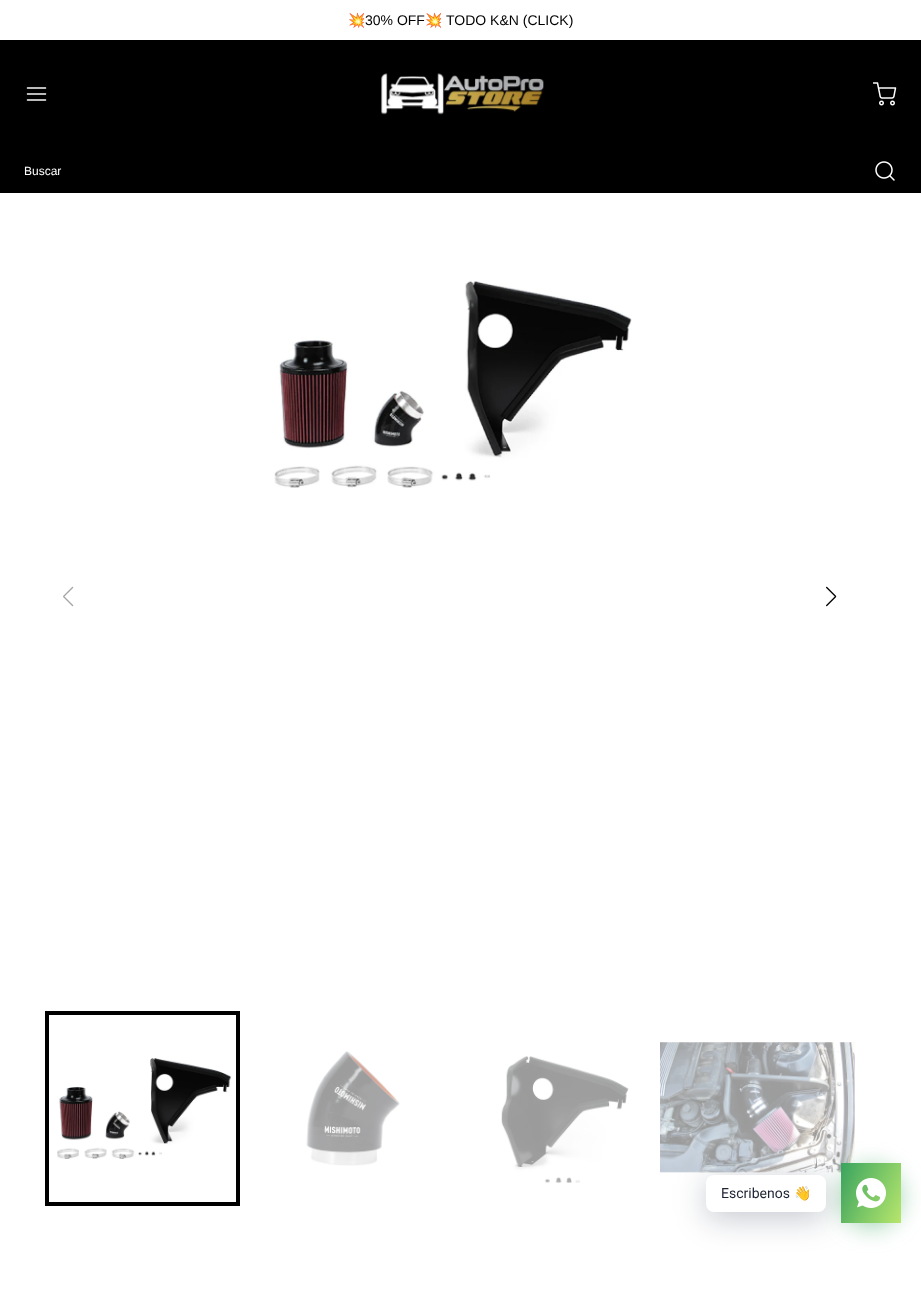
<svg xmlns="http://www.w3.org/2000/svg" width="921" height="1294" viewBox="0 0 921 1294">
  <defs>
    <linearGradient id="g1" gradientUnits="userSpaceOnUse" x1="835" y1="1176" x2="907" y2="1210"><stop offset="0" stop-color="rgb(58,165,96)"/><stop offset="1" stop-color="rgb(183,230,108)"/></linearGradient>
  </defs>
  <rect width="100%" height="100%" fill="rgb(255,255,255)"/>
  <text x="348" y="25" font-family="Noto Color Emoji" font-size="14" fill="rgb(0,0,0)">💥</text>
  <text x="365" y="25" font-family="Liberation Sans" font-size="14" fill="rgb(0,0,0)">30% OFF</text>
  <text x="425" y="25" font-family="Noto Color Emoji" font-size="14" fill="rgb(0,0,0)">💥</text>
  <text x="446" y="25" font-family="Liberation Sans" font-size="14" fill="rgb(0,0,0)">TODO K&amp;N (CLICK)</text>
  <rect x="0" y="40" width="921" height="153" fill="rgb(0,0,0)"/>
  <image x="26" y="87" width="21" height="14" href="pic1.png"/>
  <image x="381" y="73" width="163" height="42" href="pic2.png"/>
  <image x="873" y="82" width="24" height="24" href="pic3.png"/>
  <text x="24" y="175" font-family="Liberation Sans" font-size="12" fill="rgb(255,255,255)">Buscar</text>
  <image x="875" y="161" width="20" height="20" href="pic4.png"/>
  <image x="274" y="281" width="358" height="207" href="pic5.png"/>
  <image x="63" y="586" width="11" height="21" href="pic6.png"/>
  <image x="826" y="586" width="11" height="21" href="pic7.png"/>
  <rect x="47" y="1013" width="191" height="191" fill="none" stroke="rgb(0,0,0)" stroke-width="4"/>
  <image x="57" y="1058" width="175" height="101" href="pic8.png"/>
  <image x="306" y="1051" width="94" height="115" href="pic9.png"/>
  <image x="501" y="1056" width="128" height="127" href="pic10.png"/>
  <image x="660" y="1042" width="195" height="131" href="pic11.png"/>
  <rect x="841" y="1167" width="60" height="60" rx="30" fill="rgba(58,165,96,0.5)" filter="blur(12px)"/>
  <rect x="841" y="1163" width="60" height="60" fill="url(#g1)"/>
  <rect x="706" y="1181" width="120" height="37" rx="8" fill="rgba(0,18,46,0.24)" filter="blur(16px)"/>
  <rect x="706" y="1175" width="120" height="37" rx="8" fill="rgb(255,255,255)"/>
  <text x="721" y="1198" font-family="Roboto" font-size="14" fill="rgb(30,36,51)">Escribenos</text>
  <text x="794" y="1198" font-family="Noto Color Emoji" font-size="14" fill="rgb(30,36,51)">👋</text>
  <image x="856" y="1178" width="30" height="30" href="pic12.png"/>
</svg>
